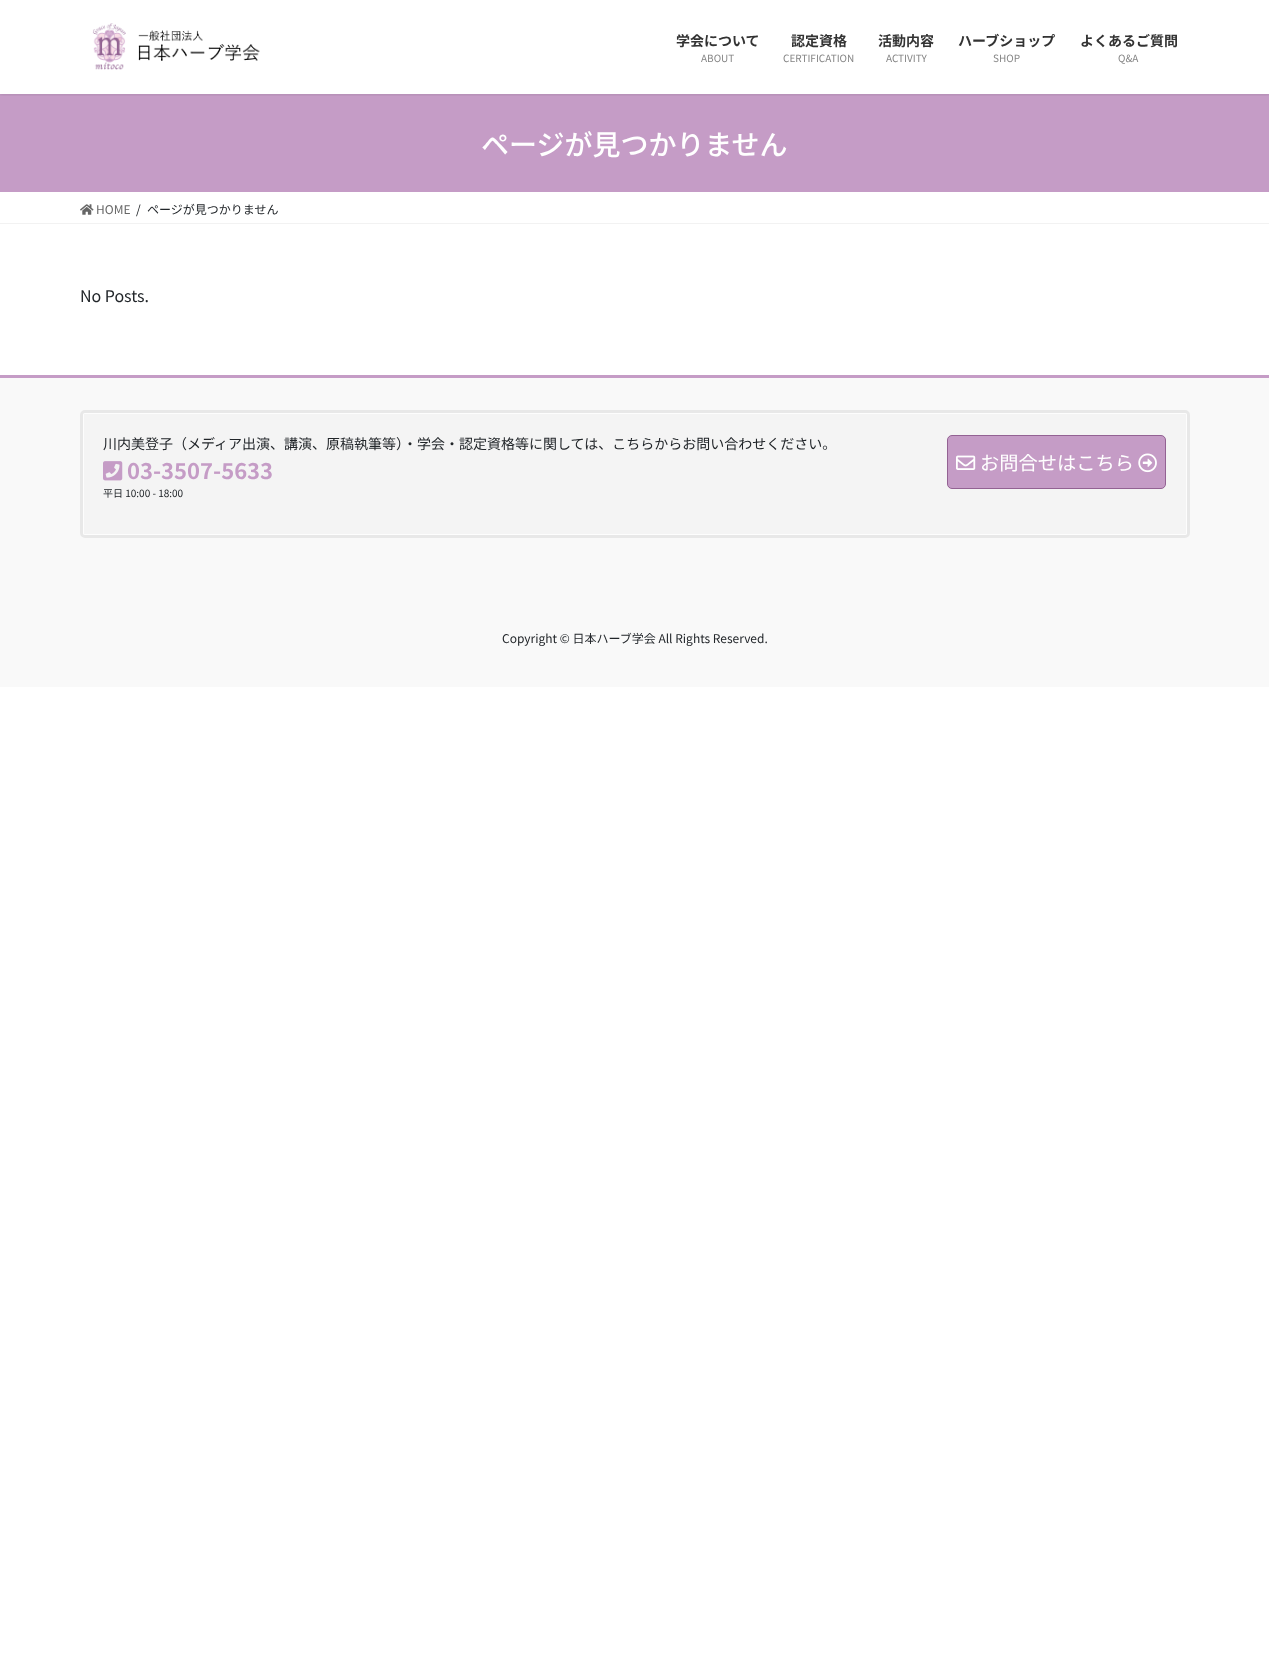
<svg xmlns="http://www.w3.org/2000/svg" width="1269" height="1672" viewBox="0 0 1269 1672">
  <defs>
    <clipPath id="clip1"><rect x="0" y="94" width="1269" height="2"/></clipPath>
  </defs>
  <rect width="100%" height="100%" fill="rgb(255,255,255)"/>
  <rect x="0" y="94" width="1269" height="98" fill="rgb(197,156,198)"/>
  <g clip-path="url(#clip1)">
    <rect x="0" y="1" width="1269" height="94" fill="rgba(0,0,0,0.1)" filter="blur(1.5px)"/>
  </g>
  <image x="92" y="23" width="168" height="47" href="pic1.png"/>
  <text x="676" y="46" font-family="Noto Sans JP" font-size="14" font-weight="bold" fill="rgb(51,51,51)">学会について</text>
  <text x="701" y="62" font-family="Noto Sans JP" font-size="10" fill="rgb(133,133,133)">ABOUT</text>
  <text x="791" y="46" font-family="Noto Sans JP" font-size="14" font-weight="bold" fill="rgb(51,51,51)">認定資格</text>
  <text x="783" y="62" font-family="Noto Sans JP" font-size="10" fill="rgb(133,133,133)">CERTIFICATION</text>
  <text x="878" y="46" font-family="Noto Sans JP" font-size="14" font-weight="bold" fill="rgb(51,51,51)">活動内容</text>
  <text x="886" y="62" font-family="Noto Sans JP" font-size="10" fill="rgb(133,133,133)">ACTIVITY</text>
  <text x="958" y="46" font-family="Noto Sans JP" font-size="14" font-weight="bold" fill="rgb(51,51,51)">ハーブショップ</text>
  <text x="993" y="62" font-family="Noto Sans JP" font-size="10" fill="rgb(133,133,133)">SHOP</text>
  <text x="1080" y="46" font-family="Noto Sans JP" font-size="14" font-weight="bold" fill="rgb(51,51,51)">よくあるご質問</text>
  <text x="1118" y="62" font-family="Noto Sans JP" font-size="10" fill="rgb(133,133,133)">Q&amp;A</text>
  <text x="481" y="155" font-family="Noto Sans JP" font-size="28" font-weight="500" fill="rgb(255,255,255)">ページが見つかりません</text>
  <rect x="0" y="223" width="1269" height="1" fill="rgb(242,242,242)"/>
  <image x="80" y="204" width="14" height="11" href="pic2.png"/>
  <text x="96" y="214" font-family="Noto Sans JP" font-size="12" fill="rgb(102,102,102)">HOME</text>
  <g font-family="Noto Sans JP" font-size="12" fill="rgb(33,37,41)">
    <text x="136" y="214">/</text>
    <text x="147" y="214">ページが見つかりません</text>
  </g>
  <text x="80" y="302" font-family="Noto Sans JP" font-size="16" fill="rgb(33,37,41)">No Posts.</text>
  <rect x="0" y="378" width="1269" height="309" fill="rgb(249,249,249)"/>
  <rect x="0" y="375" width="1269" height="3" fill="rgb(197,156,198)"/>
  <rect x="81.5" y="411.5" width="1107" height="125" rx="3.5" fill="none" stroke="rgb(232,232,232)" stroke-width="3"/>
  <rect x="83" y="413" width="1104" height="122" rx="2" fill="rgb(244,244,244)"/>
  <path d="M85 413C84 413 83 414 83 415V533C83 534 84 535 85 535H1185C1186 535 1187 534 1187 533V415C1187 414 1186 413 1185 413ZM84 414V534H1186V414Z" fill="rgb(253,253,253)" fill-rule="evenodd"/>
  <text x="103" y="449" font-family="Noto Sans JP" font-size="14" fill="rgb(33,37,41)">川内美登子（メディア出演、講演、原稿執筆等）・学会・認定資格等に関しては、こちらからお問い合わせください。</text>
  <image x="103" y="461" width="20" height="20" href="pic3.png"/>
  <text x="127" y="479" font-family="Noto Sans JP" font-size="22" font-weight="bold" fill="rgb(197,156,198)">03-3507-5633</text>
  <text x="103" y="497" font-family="Noto Sans JP" font-size="10" fill="rgb(33,37,41)">平日 10:00 - 18:00</text>
  <rect x="947.5" y="435.5" width="218" height="53" rx="4.5" fill="rgb(197,156,198)" stroke="rgb(147,98,147)"/>
  <image x="956" y="455" width="20" height="15" href="pic4.png"/>
  <text x="980" y="470" font-family="Noto Sans JP" font-size="19.25" fill="rgb(255,255,255)">お問合せはこちら</text>
  <image x="1138" y="453" width="19" height="20" href="pic5.png"/>
  <text x="502" y="643" font-family="Noto Sans JP" font-size="12" fill="rgb(33,37,41)">Copyright © 日本ハーブ学会 All Rights Reserved.</text>
</svg>
